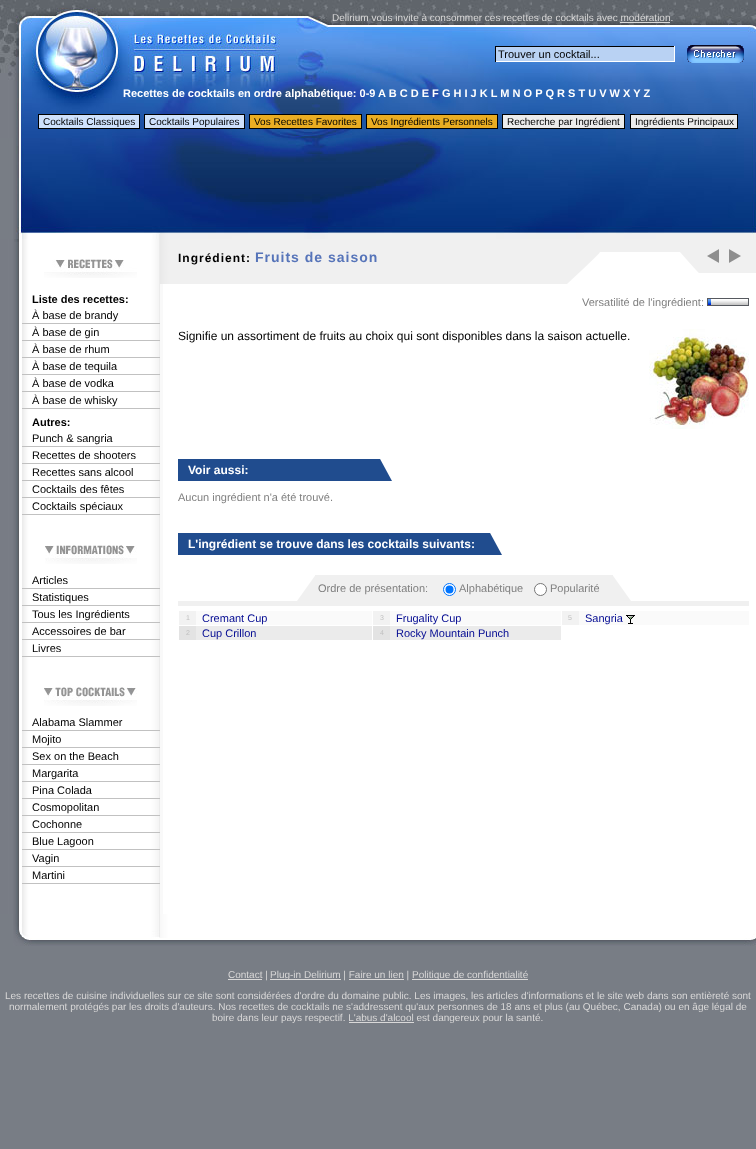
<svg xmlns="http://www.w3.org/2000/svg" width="756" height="1149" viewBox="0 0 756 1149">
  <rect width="100%" height="100%" fill="rgb(120,125,133)"/>
  <image x="0" y="0" width="332" height="25" href="pic1.png"/>
  <image x="332" y="0" width="424" height="25" href="pic2.png"/>
  <text x="332" y="21" font-family="Liberation Sans" font-size="10" fill="rgb(217,216,216)">Delirium vous invite à consommer ces recettes de cocktails avec modération.</text>
  <rect x="620" y="22" width="50" height="1" fill="rgb(217,216,216)"/>
  <image x="0" y="25" width="332" height="57" href="pic3.png"/>
  <image x="332" y="25" width="424" height="57" href="pic4.png"/>
  <rect x="496" y="47" width="178" height="14" fill="rgb(185,210,243)"/>
  <rect x="495" y="46" width="180" height="1" fill="rgb(0,0,0)"/>
  <rect x="674" y="46" width="1" height="16" fill="rgb(255,255,255)"/>
  <rect x="495" y="61" width="180" height="1" fill="rgb(255,255,255)"/>
  <rect x="495" y="46" width="1" height="16" fill="rgb(0,0,0)"/>
  <text x="498" y="58" font-family="Liberation Sans" font-size="11" fill="rgb(0,0,0)">Trouver un cocktail...</text>
  <image x="687" y="45" width="57" height="18" href="pic5.png"/>
  <image x="0" y="82" width="756" height="21" href="pic6.png"/>
  <text x="123" y="97" font-family="Liberation Sans" font-size="11" font-weight="bold" fill="rgb(255,255,255)">Recettes de cocktails en ordre alphabétique: 0-9 A B C D E F G H I J K L M N O P Q R S T U V W X Y Z</text>
  <image x="0" y="103" width="756" height="35" href="pic7.png"/>
  <rect x="38.5" y="114.5" width="101" height="14" fill="rgb(206,225,252)" stroke="rgb(0,0,0)"/>
  <text x="43" y="125" font-family="Liberation Sans" font-size="10" fill="rgb(0,0,0)">Cocktails Classiques</text>
  <rect x="144.5" y="114.5" width="100" height="14" fill="rgb(206,225,252)" stroke="rgb(0,0,0)"/>
  <text x="149" y="125" font-family="Liberation Sans" font-size="10" fill="rgb(0,0,0)">Cocktails Populaires</text>
  <rect x="249.5" y="114.5" width="112" height="14" fill="rgb(234,173,34)" stroke="rgb(0,0,0)"/>
  <text x="254" y="125" font-family="Liberation Sans" font-size="10" fill="rgb(0,0,0)">Vos Recettes Favorites</text>
  <rect x="366.5" y="114.5" width="131" height="14" fill="rgb(234,173,34)" stroke="rgb(0,0,0)"/>
  <text x="371" y="125" font-family="Liberation Sans" font-size="10" fill="rgb(0,0,0)">Vos Ingrédients Personnels</text>
  <rect x="502.5" y="114.5" width="122" height="14" fill="rgb(236,236,236)" stroke="rgb(0,0,0)"/>
  <text x="507" y="125" font-family="Liberation Sans" font-size="10" fill="rgb(0,0,0)">Recherche par Ingrédient</text>
  <rect x="630.5" y="114.5" width="107" height="14" fill="rgb(236,236,236)" stroke="rgb(0,0,0)"/>
  <text x="635" y="125" font-family="Liberation Sans" font-size="10" fill="rgb(0,0,0)">Ingrédients Principaux</text>
  <image x="13" y="138" width="743" height="101" href="pic8.png"/>
  <rect x="19" y="239" width="3" height="675" fill="rgb(255,255,255)"/>
  <image x="0" y="239" width="19" height="675" href="pic9.png"/>
  <image x="14" y="239" width="5" height="3" href="pic10.png"/>
  <rect x="163" y="284" width="593" height="630" fill="rgb(255,255,255)"/>
  <rect x="160" y="284" width="3" height="630" fill="rgb(249,249,249)"/>
  <image x="160" y="239" width="13" height="45" href="pic11.png"/>
  <image x="22" y="239" width="138" height="675" href="pic12.png"/>
  <image x="44" y="259" width="93" height="19" href="pic13.png"/>
  <text x="32" y="303" font-family="Liberation Sans" font-size="11" font-weight="bold" fill="rgb(0,0,0)">Liste des recettes:</text>
  <rect x="22" y="323" width="138" height="1" fill="rgb(193,193,193)"/>
  <text x="32" y="319" font-family="Liberation Sans" font-size="11" fill="rgb(0,0,0)">À base de brandy</text>
  <rect x="22" y="340" width="138" height="1" fill="rgb(193,193,193)"/>
  <text x="32" y="336" font-family="Liberation Sans" font-size="11" fill="rgb(0,0,0)">À base de gin</text>
  <rect x="22" y="357" width="138" height="1" fill="rgb(193,193,193)"/>
  <text x="32" y="353" font-family="Liberation Sans" font-size="11" fill="rgb(0,0,0)">À base de rhum</text>
  <rect x="22" y="374" width="138" height="1" fill="rgb(193,193,193)"/>
  <text x="32" y="370" font-family="Liberation Sans" font-size="11" fill="rgb(0,0,0)">À base de tequila</text>
  <rect x="22" y="391" width="138" height="1" fill="rgb(193,193,193)"/>
  <text x="32" y="387" font-family="Liberation Sans" font-size="11" fill="rgb(0,0,0)">À base de vodka</text>
  <rect x="22" y="408" width="138" height="1" fill="rgb(193,193,193)"/>
  <text x="32" y="404" font-family="Liberation Sans" font-size="11" fill="rgb(0,0,0)">À base de whisky</text>
  <text x="32" y="426" font-family="Liberation Sans" font-size="11" font-weight="bold" fill="rgb(0,0,0)">Autres:</text>
  <rect x="22" y="446" width="138" height="1" fill="rgb(193,193,193)"/>
  <text x="32" y="442" font-family="Liberation Sans" font-size="11" fill="rgb(0,0,0)">Punch &amp; sangria</text>
  <rect x="22" y="463" width="138" height="1" fill="rgb(193,193,193)"/>
  <text x="32" y="459" font-family="Liberation Sans" font-size="11" fill="rgb(0,0,0)">Recettes de shooters</text>
  <rect x="22" y="480" width="138" height="1" fill="rgb(193,193,193)"/>
  <text x="32" y="476" font-family="Liberation Sans" font-size="11" fill="rgb(0,0,0)">Recettes sans alcool</text>
  <rect x="22" y="497" width="138" height="1" fill="rgb(193,193,193)"/>
  <text x="32" y="493" font-family="Liberation Sans" font-size="11" fill="rgb(0,0,0)">Cocktails des fêtes</text>
  <rect x="22" y="514" width="138" height="1" fill="rgb(193,193,193)"/>
  <text x="32" y="510" font-family="Liberation Sans" font-size="11" fill="rgb(0,0,0)">Cocktails spéciaux</text>
  <image x="45" y="545" width="92" height="19" href="pic14.png"/>
  <rect x="22" y="588" width="138" height="1" fill="rgb(193,193,193)"/>
  <text x="32" y="584" font-family="Liberation Sans" font-size="11" fill="rgb(0,0,0)">Articles</text>
  <rect x="22" y="605" width="138" height="1" fill="rgb(193,193,193)"/>
  <text x="32" y="601" font-family="Liberation Sans" font-size="11" fill="rgb(0,0,0)">Statistiques</text>
  <rect x="22" y="622" width="138" height="1" fill="rgb(193,193,193)"/>
  <text x="32" y="618" font-family="Liberation Sans" font-size="11" fill="rgb(0,0,0)">Tous les Ingrédients</text>
  <rect x="22" y="639" width="138" height="1" fill="rgb(193,193,193)"/>
  <text x="32" y="635" font-family="Liberation Sans" font-size="11" fill="rgb(0,0,0)">Accessoires de bar</text>
  <rect x="22" y="656" width="138" height="1" fill="rgb(193,193,193)"/>
  <text x="32" y="652" font-family="Liberation Sans" font-size="11" fill="rgb(0,0,0)">Livres</text>
  <image x="44" y="687" width="93" height="19" href="pic15.png"/>
  <rect x="22" y="730" width="138" height="1" fill="rgb(193,193,193)"/>
  <text x="32" y="726" font-family="Liberation Sans" font-size="11" fill="rgb(0,0,0)">Alabama Slammer</text>
  <rect x="22" y="747" width="138" height="1" fill="rgb(193,193,193)"/>
  <text x="32" y="743" font-family="Liberation Sans" font-size="11" fill="rgb(0,0,0)">Mojito</text>
  <rect x="22" y="764" width="138" height="1" fill="rgb(193,193,193)"/>
  <text x="32" y="760" font-family="Liberation Sans" font-size="11" fill="rgb(0,0,0)">Sex on the Beach</text>
  <rect x="22" y="781" width="138" height="1" fill="rgb(193,193,193)"/>
  <text x="32" y="777" font-family="Liberation Sans" font-size="11" fill="rgb(0,0,0)">Margarita</text>
  <rect x="22" y="798" width="138" height="1" fill="rgb(193,193,193)"/>
  <text x="32" y="794" font-family="Liberation Sans" font-size="11" fill="rgb(0,0,0)">Pina Colada</text>
  <rect x="22" y="815" width="138" height="1" fill="rgb(193,193,193)"/>
  <text x="32" y="811" font-family="Liberation Sans" font-size="11" fill="rgb(0,0,0)">Cosmopolitan</text>
  <rect x="22" y="832" width="138" height="1" fill="rgb(193,193,193)"/>
  <text x="32" y="828" font-family="Liberation Sans" font-size="11" fill="rgb(0,0,0)">Cochonne</text>
  <rect x="22" y="849" width="138" height="1" fill="rgb(193,193,193)"/>
  <text x="32" y="845" font-family="Liberation Sans" font-size="11" fill="rgb(0,0,0)">Blue Lagoon</text>
  <rect x="22" y="866" width="138" height="1" fill="rgb(193,193,193)"/>
  <text x="32" y="862" font-family="Liberation Sans" font-size="11" fill="rgb(0,0,0)">Vagin</text>
  <rect x="22" y="883" width="138" height="1" fill="rgb(193,193,193)"/>
  <text x="32" y="879" font-family="Liberation Sans" font-size="11" fill="rgb(0,0,0)">Martini</text>
  <image x="173" y="239" width="583" height="45" href="pic16.png"/>
  <text x="178" y="262" font-family="Liberation Sans" font-size="12" font-weight="bold" letter-spacing="1" fill="rgb(0,0,0)">Ingrédient:</text>
  <text x="255" y="262" font-family="Liberation Sans" font-size="14" font-weight="bold" letter-spacing="1" fill="rgb(86,116,185)">Fruits de saison</text>
  <image x="707" y="249" width="12" height="14" href="pic17.png"/>
  <image x="729" y="249" width="12" height="14" href="pic18.png"/>
  <text x="582" y="306" font-family="Liberation Sans" font-size="11" fill="rgb(128,128,128)">Versatilité de l'ingrédient:</text>
  <rect x="707" y="298" width="42" height="1" fill="rgb(86,89,95)"/>
  <rect x="707" y="305" width="4" height="1" fill="rgb(86,89,95)"/>
  <rect x="707" y="298" width="1" height="8" fill="rgb(86,89,95)"/>
  <image x="708" y="299" width="3" height="6" href="pic19.png"/>
  <image x="711" y="300" width="37" height="5" href="pic20.png"/>
  <rect x="748" y="298" width="1" height="8" fill="rgb(86,89,95)"/>
  <rect x="711" y="305" width="38" height="1" fill="rgb(86,89,95)"/>
  <text x="178" y="340" font-family="Liberation Sans" font-size="12" fill="rgb(0,0,0)">Signifie un assortiment de fruits au choix qui sont disponibles dans la saison actuelle.</text>
  <image x="649" y="329" width="100" height="100" href="pic21.png"/>
  <rect x="178" y="459" width="202" height="22" fill="rgb(32,76,142)"/>
  <image x="380" y="459" width="12" height="22" href="pic22.png"/>
  <text x="188" y="474" font-family="Liberation Sans" font-size="12" font-weight="bold" fill="rgb(255,255,255)">Voir aussi:</text>
  <text x="178" y="501" font-family="Liberation Sans" font-size="11" fill="rgb(128,128,128)">Aucun ingrédient n'a été trouvé.</text>
  <rect x="178" y="533" width="312" height="22" fill="rgb(32,76,142)"/>
  <image x="490" y="533" width="12" height="22" href="pic22.png"/>
  <text x="188" y="548" font-family="Liberation Sans" font-size="12" font-weight="bold" fill="rgb(255,255,255)">L'ingrédient se trouve dans les cocktails suivants:</text>
  <rect x="178" y="601" width="571" height="5" fill="rgb(240,240,240)"/>
  <rect x="315" y="575" width="298" height="26" fill="rgb(240,240,240)"/>
  <image x="297" y="575" width="18" height="26" href="pic23.png"/>
  <text x="318" y="592" font-family="Liberation Sans" font-size="11" fill="rgb(128,128,128)">Ordre de présentation:</text>
  <circle cx="449.5" cy="589.5" r="6" fill="rgb(255,255,255)" stroke="rgb(0,117,255)"/>
  <circle cx="449.5" cy="589.5" r="4" fill="rgb(0,117,255)"/>
  <text x="459" y="592" font-family="Liberation Sans" font-size="11" fill="rgb(128,128,128)">Alphabétique</text>
  <circle cx="540.5" cy="589.5" r="6" fill="rgb(255,255,255)" stroke="rgb(118,118,118)"/>
  <text x="550" y="592" font-family="Liberation Sans" font-size="11" fill="rgb(128,128,128)">Popularité</text>
  <image x="613" y="575" width="18" height="26" href="pic24.png"/>
  <rect x="179" y="611" width="17" height="14" fill="rgb(242,242,242)"/>
  <text x="186" y="620" font-family="Liberation Sans" font-size="7" fill="rgb(192,192,192)">1</text>
  <rect x="196" y="611" width="176" height="14" fill="rgb(250,250,250)"/>
  <text x="202" y="622" font-family="Liberation Sans" font-size="11" fill="rgb(4,11,146)">Cremant Cup</text>
  <rect x="179" y="626" width="17" height="14" fill="rgb(227,227,227)"/>
  <text x="186" y="635" font-family="Liberation Sans" font-size="7" fill="rgb(192,192,192)">2</text>
  <rect x="196" y="626" width="176" height="14" fill="rgb(235,235,235)"/>
  <text x="202" y="637" font-family="Liberation Sans" font-size="11" fill="rgb(4,11,146)">Cup Crillon</text>
  <rect x="373" y="611" width="17" height="14" fill="rgb(242,242,242)"/>
  <text x="380" y="620" font-family="Liberation Sans" font-size="7" fill="rgb(192,192,192)">3</text>
  <rect x="390" y="611" width="171" height="14" fill="rgb(250,250,250)"/>
  <text x="396" y="622" font-family="Liberation Sans" font-size="11" fill="rgb(4,11,146)">Frugality Cup</text>
  <rect x="373" y="626" width="17" height="14" fill="rgb(227,227,227)"/>
  <text x="380" y="635" font-family="Liberation Sans" font-size="7" fill="rgb(192,192,192)">4</text>
  <rect x="390" y="626" width="171" height="14" fill="rgb(235,235,235)"/>
  <text x="396" y="637" font-family="Liberation Sans" font-size="11" fill="rgb(4,11,146)">Rocky Mountain Punch</text>
  <rect x="562" y="611" width="17" height="14" fill="rgb(242,242,242)"/>
  <text x="568" y="620" font-family="Liberation Sans" font-size="7" fill="rgb(192,192,192)">5</text>
  <rect x="579" y="611" width="170" height="14" fill="rgb(250,250,250)"/>
  <text x="585" y="622" font-family="Liberation Sans" font-size="11" fill="rgb(4,11,146)">Sangria</text>
  <image x="626" y="615" width="9" height="9" href="pic25.png"/>
  <image x="13" y="914" width="743" height="32" href="pic26.png"/>
  <rect x="228" y="979" width="34" height="1" fill="rgb(217,216,216)"/>
  <text x="228" y="978" font-family="Liberation Sans" font-size="10" fill="rgb(217,216,216)">Contact |</text>
  <rect x="270" y="979" width="71" height="1" fill="rgb(217,216,216)"/>
  <text x="270" y="978" font-family="Liberation Sans" font-size="10" fill="rgb(217,216,216)">Plug-in Delirium | Faire un lien |</text>
  <rect x="412" y="979" width="116" height="1" fill="rgb(217,216,216)"/>
  <text x="412" y="978" font-family="Liberation Sans" font-size="10" fill="rgb(217,216,216)">Politique de confidentialité</text>
  <rect x="349" y="979" width="55" height="1" fill="rgb(217,216,216)"/>
  <g font-family="Liberation Sans" font-size="10" fill="rgb(217,216,216)">
    <text x="5" y="999">Les recettes de cuisine individuelles sur ce site sont considérées d'ordre du domaine public. Les images, les articles d'informations et le site web dans son entièreté sont</text>
    <text x="9" y="1010">normalement protégés par les droits d'auteurs. Nos recettes de cocktails ne s'addressent qu'aux personnes de 18 ans et plus (au Québec, Canada) ou en âge légal de</text>
    <text x="212" y="1021">boire dans leur pays respectif. L'abus d'alcool est dangereux pour la santé.</text>
  </g>
  <rect x="349" y="1022" width="65" height="1" fill="rgb(217,216,216)"/>
</svg>
